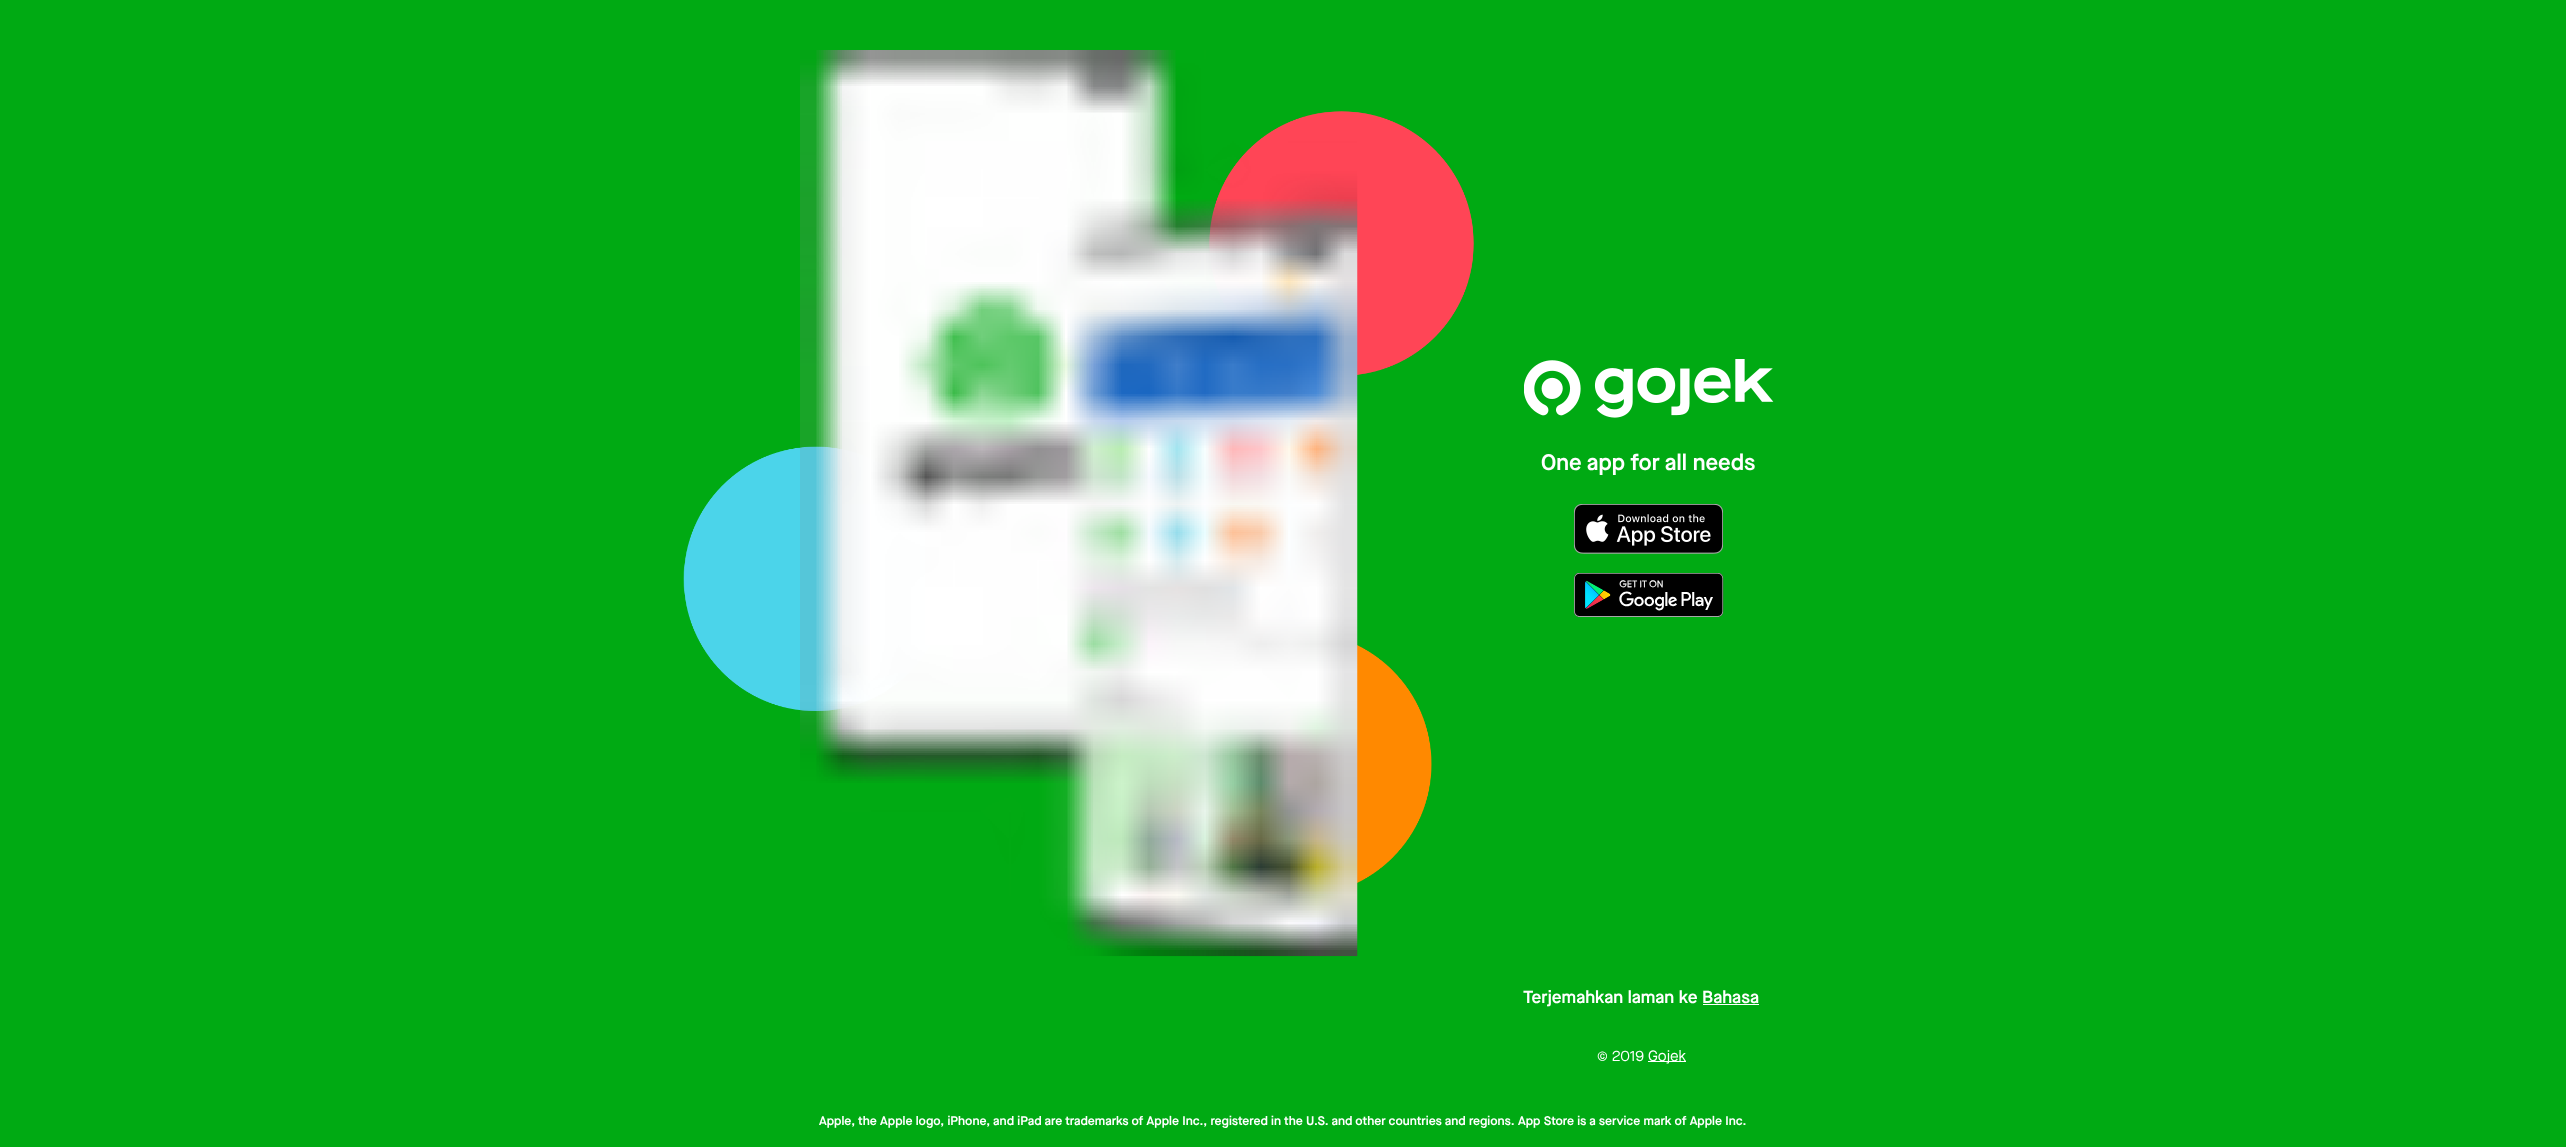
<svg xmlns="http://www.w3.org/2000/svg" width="2566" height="1147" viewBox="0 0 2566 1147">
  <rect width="100%" height="100%" fill="rgb(0,170,19)"/>
  <image x="683" y="111" width="791" height="786" href="pic1.png"/>
  <image x="800" y="50" width="558" height="907" href="pic2.png"/>
  <image x="1524" y="359" width="250" height="59" href="pic3.png"/>
  <text x="1541" y="470" font-family="Maison Neue" font-size="22.5" font-weight="600" fill="rgb(255,255,255)">One app for all needs</text>
  <image x="1574" y="504" width="149" height="50" href="pic4.png"/>
  <image x="1574" y="573" width="150" height="44" href="pic5.png"/>
  <text x="1523" y="1003" font-family="Maison Neue" font-size="17.5" font-weight="600" fill="rgb(255,255,255)">Terjemahkan laman ke Bahasa</text>
  <rect x="1703" y="1004" width="56" height="1" fill="rgb(255,255,255)"/>
  <text x="1597" y="1061" font-family="Maison Neue" font-size="15" fill="rgb(255,255,255)">© 2019</text>
  <rect x="1648" y="1061" width="38" height="1" fill="rgb(255,255,255)"/>
  <text x="1648" y="1061" font-family="Maison Neue" font-size="15" fill="rgb(255,255,255)">Gojek</text>
  <text x="819" y="1125" font-family="Maison Neue" font-size="12.5" font-weight="600" fill="rgb(255,255,255)">Apple, the Apple logo, iPhone, and iPad are trademarks of Apple Inc., registered in the U.S. and other countries and regions. App Store is a service mark of Apple Inc.</text>
</svg>
